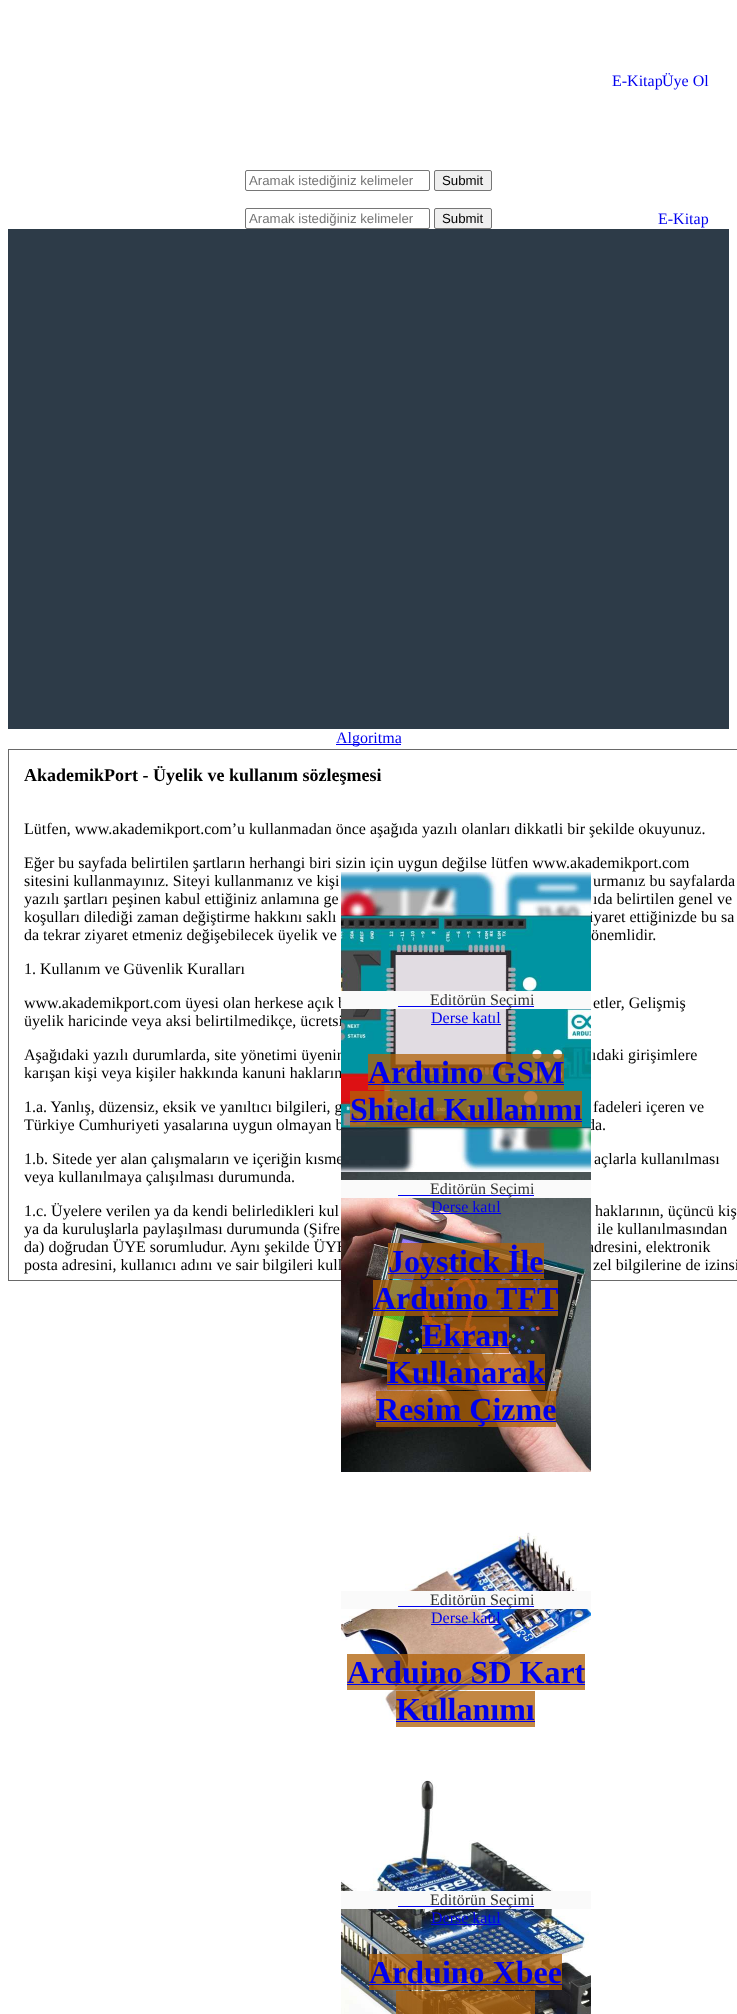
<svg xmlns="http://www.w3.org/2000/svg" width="737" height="2014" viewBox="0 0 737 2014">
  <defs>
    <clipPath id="clip1"><rect x="249" y="173" width="164" height="15"/></clipPath>
    <clipPath id="clip2"><rect x="249" y="211" width="164" height="15"/></clipPath>
  </defs>
  <rect width="100%" height="100%" fill="rgb(255,255,255)"/>
  <g font-family="Liberation Serif" font-size="16" fill="rgb(0,0,238)">
    <text x="612" y="86">E-Kitap</text>
    <text x="662" y="86">Üye Ol</text>
  </g>
  <rect x="245.5" y="170.5" width="184" height="20" rx="1.5" fill="none" stroke="rgb(118,118,118)"/>
  <g clip-path="url(#clip1)">
    <text x="249" y="185" font-family="Liberation Sans" font-size="13.25" fill="rgb(117,117,117)">Aramak istediğiniz kelimeler</text>
  </g>
  <rect x="434.5" y="170.5" width="57" height="20" rx="1.5" fill="rgb(239,239,239)" stroke="rgb(118,118,118)"/>
  <text x="442" y="185" font-family="Liberation Sans" font-size="13.25" fill="rgb(0,0,0)">Submit</text>
  <rect x="245.5" y="208.5" width="184" height="20" rx="1.5" fill="none" stroke="rgb(118,118,118)"/>
  <g clip-path="url(#clip2)">
    <text x="249" y="223" font-family="Liberation Sans" font-size="13.25" fill="rgb(117,117,117)">Aramak istediğiniz kelimeler</text>
  </g>
  <rect x="434.5" y="208.5" width="57" height="20" rx="1.5" fill="rgb(239,239,239)" stroke="rgb(118,118,118)"/>
  <text x="442" y="223" font-family="Liberation Sans" font-size="13.25" fill="rgb(0,0,0)">Submit</text>
  <text x="658" y="224" font-family="Liberation Serif" font-size="16" fill="rgb(0,0,238)">E-Kitap</text>
  <rect x="8" y="229" width="721" height="500" fill="rgb(45,59,72)"/>
  <rect x="336" y="744" width="65" height="1" fill="rgb(0,0,238)"/>
  <text x="336" y="743" font-family="Liberation Serif" font-size="16" fill="rgb(0,0,238)">Algoritma</text>
  <rect x="8.5" y="749.5" width="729" height="531" fill="none" stroke="rgb(105,105,105)"/>
  <g font-family="Liberation Serif" font-size="16" fill="rgb(0,0,0)">
    <text x="589" y="922">iyaret ettiğinizde bu sa</text>
    <text>
      <tspan x="24" y="1008">www.akademikport.com üyesi olan herkese açık b</tspan>
      <tspan x="24" y="1026">üyelik haricinde veya aksi belirtilmedikçe, ücretsi</tspan>
    </text>
    <text>
      <tspan x="24" y="1060">Aşağıdaki yazılı durumlarda, site yönetimi üyenin</tspan>
      <tspan x="24" y="1078">karışan kişi veya kişiler hakkında kanuni hakların</tspan>
    </text>
    <text>
      <tspan x="24" y="1112">1.a. Yanlış, düzensiz, eksik ve yanıltıcı bilgileri, g</tspan>
      <tspan x="24" y="1130">Türkiye Cumhuriyeti yasalarına uygun olmayan b</tspan>
    </text>
    <text x="587" y="1130">da.</text>
    <text x="24" y="1164">1.b. Sitede yer alan çalışmaların ve içeriğin kısme</text>
  </g>
  <image x="341" y="872" width="250" height="300" href="pic1.png"/>
  <rect x="341" y="991" width="250" height="18" fill="rgb(250,250,250)"/>
  <rect x="398" y="1006" width="136" height="1" fill="rgb(0,0,238)"/>
  <text x="430" y="1005" font-family="Liberation Serif" font-size="16" fill="rgb(51,51,51)">Editörün Seçimi</text>
  <text x="431" y="1023" font-family="Liberation Serif" font-size="16" fill="rgb(0,0,238)">Derse katıl</text>
  <rect x="431" y="1024" width="70" height="1" fill="rgb(0,0,238)"/>
  <rect x="368" y="1054" width="196" height="36" fill="rgba(176,97,8,0.76)"/>
  <text x="368" y="1083" font-family="Liberation Serif" font-size="32" font-weight="bold" fill="rgb(0,0,238)">Arduino GSM</text>
  <rect x="368" y="1084" width="196" height="1" fill="rgb(0,0,238)"/>
  <rect x="350" y="1091" width="232" height="36" fill="rgba(176,97,8,0.76)"/>
  <text x="350" y="1120" font-family="Liberation Serif" font-size="32" font-weight="bold" fill="rgb(0,0,238)">Shield Kullanımı</text>
  <rect x="350" y="1121" width="232" height="1" fill="rgb(0,0,238)"/>
  <g font-family="Liberation Serif" font-size="16" fill="rgb(0,0,0)">
    <text x="24" y="1252">da) doğrudan ÜYE sorumludur. Aynı şekilde ÜYE</text>
    <text x="587" y="1252">adresini, elektronik</text>
    <text x="24" y="1270">posta adresini, kullanıcı adını ve sair bilgileri kull</text>
  </g>
  <image x="341" y="1172" width="250" height="300" href="pic2.png"/>
  <rect x="341" y="1180" width="250" height="18" fill="rgb(250,250,250)"/>
  <rect x="398" y="1195" width="136" height="1" fill="rgb(0,0,238)"/>
  <text x="430" y="1194" font-family="Liberation Serif" font-size="16" fill="rgb(51,51,51)">Editörün Seçimi</text>
  <text x="431" y="1212" font-family="Liberation Serif" font-size="16" fill="rgb(0,0,238)">Derse katıl</text>
  <rect x="431" y="1213" width="70" height="1" fill="rgb(0,0,238)"/>
  <rect x="388" y="1243" width="156" height="36" fill="rgba(176,97,8,0.76)"/>
  <rect x="388" y="1273" width="156" height="1" fill="rgb(0,0,238)"/>
  <text x="388" y="1272" font-family="Liberation Serif" font-size="32" font-weight="bold" fill="rgb(0,0,238)">Joystick İle</text>
  <rect x="373" y="1280" width="185" height="36" fill="rgba(176,97,8,0.76)"/>
  <text x="373" y="1309" font-family="Liberation Serif" font-size="32" font-weight="bold" fill="rgb(0,0,238)">Arduino TFT</text>
  <rect x="373" y="1310" width="185" height="1" fill="rgb(0,0,238)"/>
  <rect x="422" y="1317" width="87" height="36" fill="rgba(176,97,8,0.76)"/>
  <text x="422" y="1346" font-family="Liberation Serif" font-size="32" font-weight="bold" fill="rgb(0,0,238)">Ekran</text>
  <rect x="422" y="1347" width="87" height="1" fill="rgb(0,0,238)"/>
  <rect x="387" y="1354" width="158" height="36" fill="rgba(176,97,8,0.76)"/>
  <text x="387" y="1383" font-family="Liberation Serif" font-size="32" font-weight="bold" fill="rgb(0,0,238)">Kullanarak</text>
  <rect x="387" y="1384" width="158" height="1" fill="rgb(0,0,238)"/>
  <rect x="376" y="1391" width="180" height="36" fill="rgba(176,97,8,0.76)"/>
  <rect x="376" y="1421" width="180" height="1" fill="rgb(0,0,238)"/>
  <text x="376" y="1420" font-family="Liberation Serif" font-size="32" font-weight="bold" fill="rgb(0,0,238)">Resim Çizme</text>
  <image x="341" y="1532" width="250" height="188" href="pic3.png"/>
  <rect x="341" y="1591" width="250" height="18" fill="rgb(250,250,250)"/>
  <rect x="398" y="1606" width="136" height="1" fill="rgb(0,0,238)"/>
  <text x="430" y="1605" font-family="Liberation Serif" font-size="16" fill="rgb(51,51,51)">Editörün Seçimi</text>
  <text x="431" y="1623" font-family="Liberation Serif" font-size="16" fill="rgb(0,0,238)">Derse katıl</text>
  <rect x="431" y="1624" width="70" height="1" fill="rgb(0,0,238)"/>
  <rect x="347" y="1654" width="238" height="36" fill="rgba(176,97,8,0.76)"/>
  <text x="347" y="1683" font-family="Liberation Serif" font-size="32" font-weight="bold" fill="rgb(0,0,238)">Arduino SD Kart</text>
  <rect x="347" y="1684" width="238" height="1" fill="rgb(0,0,238)"/>
  <rect x="396" y="1691" width="139" height="36" fill="rgba(176,97,8,0.76)"/>
  <text x="396" y="1720" font-family="Liberation Serif" font-size="32" font-weight="bold" fill="rgb(0,0,238)">Kullanımı</text>
  <rect x="396" y="1721" width="139" height="1" fill="rgb(0,0,238)"/>
  <image x="341" y="1780" width="250" height="234" href="pic4.png"/>
  <rect x="341" y="1891" width="250" height="18" fill="rgb(250,250,250)"/>
  <rect x="398" y="1906" width="136" height="1" fill="rgb(0,0,238)"/>
  <text x="430" y="1905" font-family="Liberation Serif" font-size="16" fill="rgb(51,51,51)">Editörün Seçimi</text>
  <text x="431" y="1923" font-family="Liberation Serif" font-size="16" fill="rgb(0,0,238)">Derse katıl</text>
  <rect x="431" y="1924" width="70" height="1" fill="rgb(0,0,238)"/>
  <rect x="369" y="1954" width="193" height="36" fill="rgba(176,97,8,0.76)"/>
  <text x="369" y="1983" font-family="Liberation Serif" font-size="32" font-weight="bold" fill="rgb(0,0,238)">Arduino Xbee</text>
  <rect x="396" y="1991" width="139" height="23" fill="rgba(176,97,8,0.76)"/>
  <rect x="369" y="1984" width="193" height="1" fill="rgb(0,0,238)"/>
  <text x="24" y="781" font-family="Liberation Serif" font-size="18" font-weight="bold" fill="rgb(0,0,0)">AkademikPort - Üyelik ve kullanım sözleşmesi</text>
  <g font-family="Liberation Serif" font-size="16" fill="rgb(0,0,0)">
    <text x="24" y="834">Lütfen, www.akademikport.com’u kullanmadan önce aşağıda yazılı olanları dikkatli bir şekilde okuyunuz.</text>
    <text>
      <tspan x="24" y="868">Eğer bu sayfada belirtilen şartların herhangi biri sizin için uygun değilse lütfen www.akademikport.com</tspan>
      <tspan x="24" y="886">sitesini kullanmayınız. Siteyi kullanmanız ve kişi</tspan>
    </text>
    <text x="593" y="886">urmanız bu sayfalarda</text>
    <text x="24" y="904">yazılı şartları peşinen kabul ettiğiniz anlamına ge</text>
    <text x="593" y="904">ıda belirtilen genel ve</text>
    <text>
      <tspan x="24" y="922">koşulları dilediği zaman değiştirme hakkını saklı</tspan>
      <tspan x="24" y="940">da tekrar ziyaret etmeniz değişebilecek üyelik ve</tspan>
    </text>
    <text x="591" y="940">önemlidir.</text>
    <text x="24" y="974">1. Kullanım ve Güvenlik Kuralları</text>
    <text x="593" y="1008">etler, Gelişmiş</text>
    <text x="592" y="1060">ıdaki girişimlere</text>
    <text x="593" y="1112">fadeleri içeren ve</text>
    <text x="594" y="1164">açlarla kullanılması</text>
    <text x="24" y="1182">veya kullanılmaya çalışılması durumunda.</text>
    <text x="24" y="1216">1.c. Üyelere verilen ya da kendi belirledikleri kul</text>
    <text x="595" y="1216">haklarının, üçüncü kiş</text>
    <text x="24" y="1234">ya da kuruluşlarla paylaşılması durumunda (Şifre</text>
    <text x="597" y="1234">ile kullanılmasından</text>
    <text x="593" y="1270">zel bilgilerine de izinsi</text>
  </g>
</svg>
